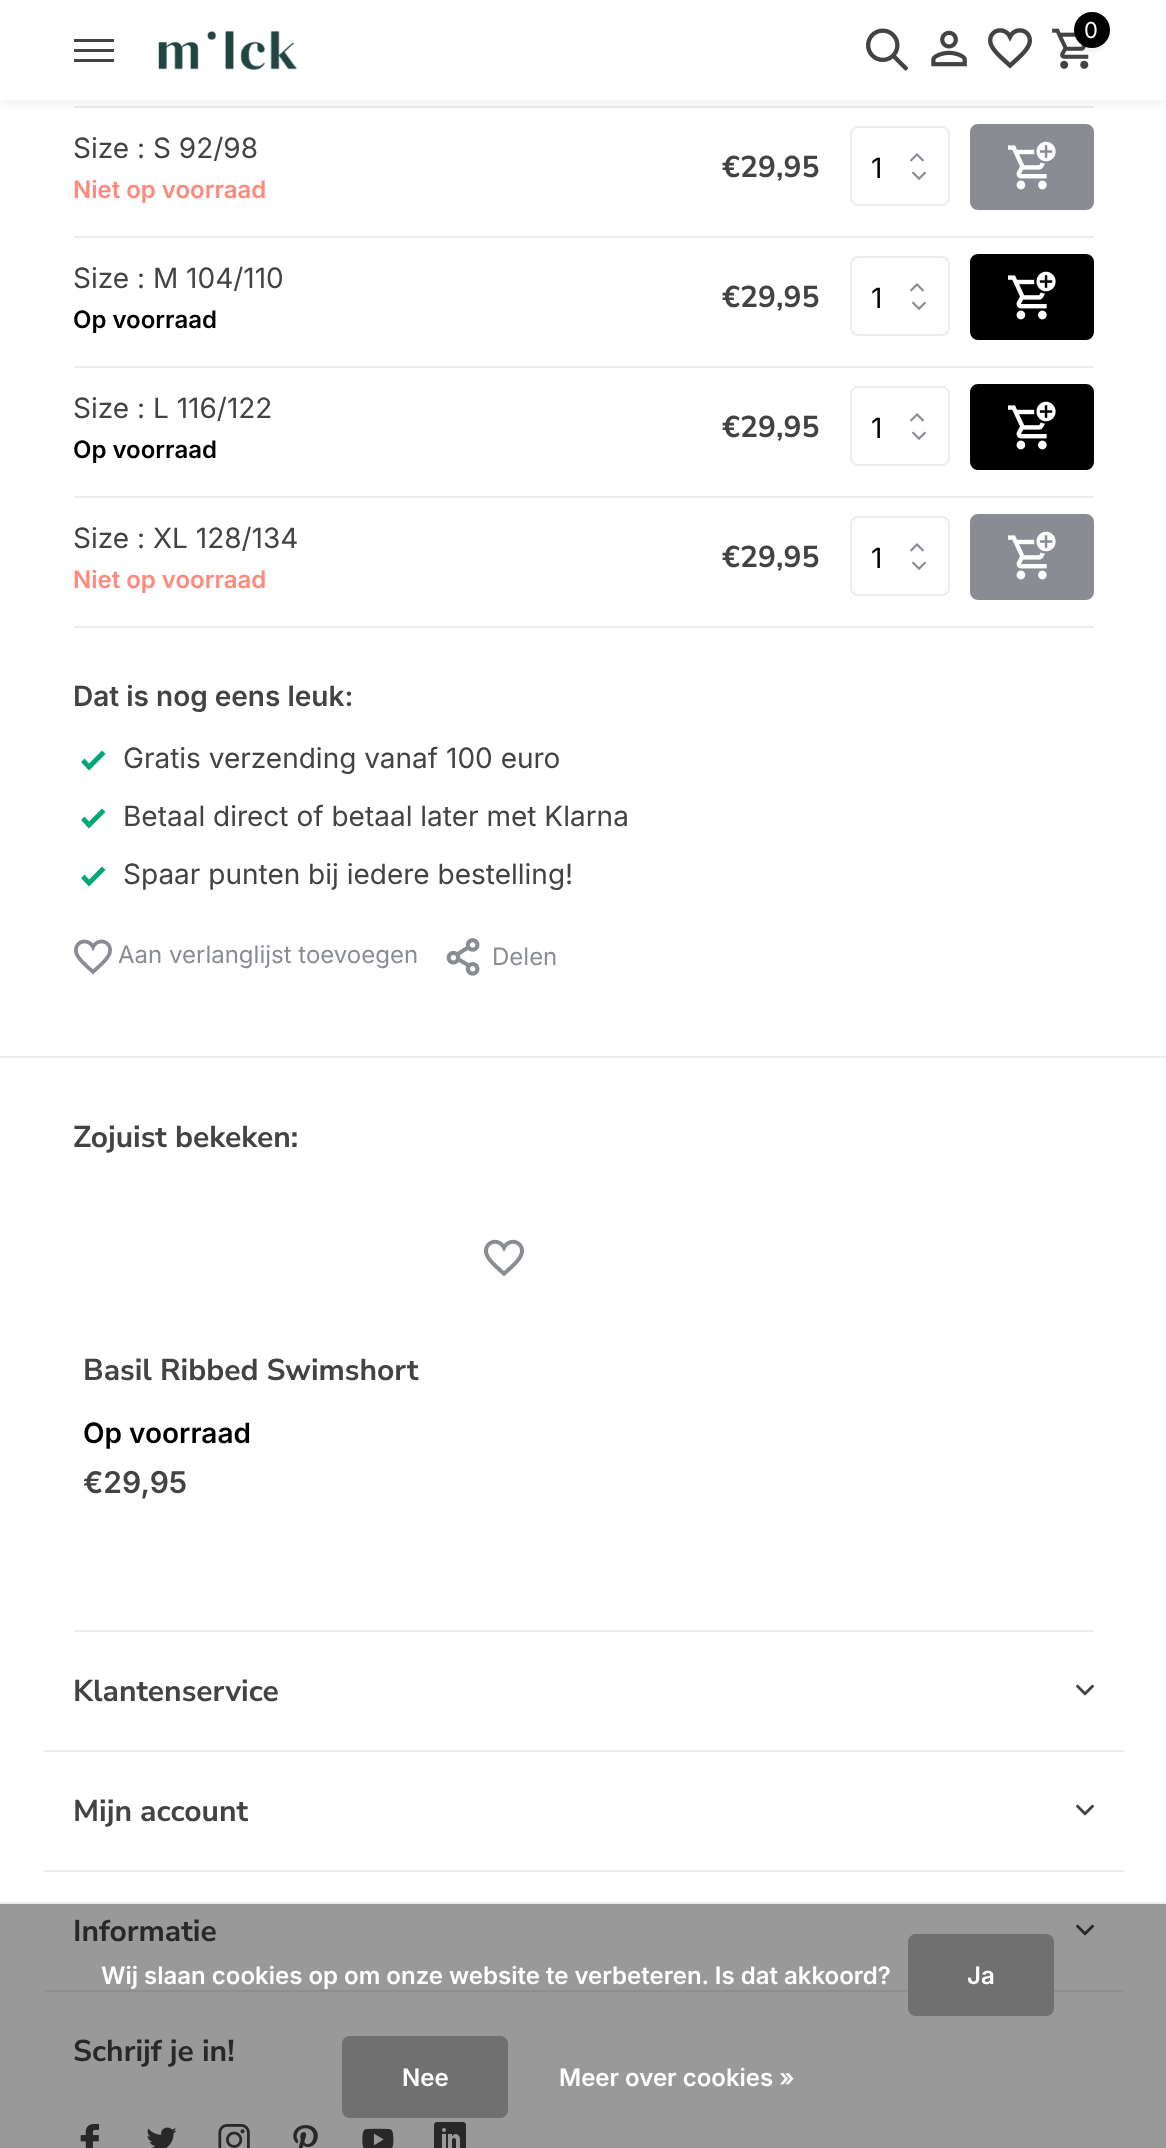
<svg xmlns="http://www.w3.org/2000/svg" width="1166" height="2148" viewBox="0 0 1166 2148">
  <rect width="100%" height="100%" fill="rgb(255,255,255)"/>
  <rect x="0" y="1904" width="1166" height="244" fill="rgb(153,153,153)"/>
  <rect x="74" y="106" width="1020" height="2" fill="rgb(236,236,236)"/>
  <rect x="0" y="6" width="1166" height="100" fill="rgba(0,0,0,0.04)" filter="blur(3px)"/>
  <rect x="0" y="4" width="1166" height="96" fill="rgb(255,255,255)"/>
  <path d="M74 62H114V59H74ZM74 52H114V49H74ZM74 39V42H114V39Z" fill="rgb(67,67,67)"/>
  <image x="158" y="31" width="140" height="39" href="pic1.png"/>
  <image x="866" y="28" width="43" height="43" href="pic2.png"/>
  <image x="931" y="30" width="36" height="37" href="pic3.png"/>
  <image x="988" y="28" width="44" height="41" href="pic4.png"/>
  <image x="1052" y="28" width="37" height="41" href="pic5.png"/>
  <rect x="1074" y="16" width="36" height="36" rx="18" fill="rgba(0,0,0,0.06)" filter="blur(2px)"/>
  <circle cx="1092" cy="30" r="18" fill="rgb(0,0,0)"/>
  <text x="1084" y="38" font-family="Inter" font-size="22" fill="rgb(255,255,255)">0</text>
  <rect x="74" y="236" width="1020" height="2" fill="rgb(236,236,236)"/>
  <text x="73" y="158" font-family="Inter" font-size="28" fill="rgb(67,67,67)">Size : S 92/98</text>
  <text x="73" y="198" font-family="Inter" font-size="24" font-weight="600" fill="rgb(255,137,123)">Niet op voorraad</text>
  <text x="722" y="177" font-family="Nunito Sans" font-size="30" font-weight="200" fill="rgb(67,67,67)">€29,95</text>
  <rect x="851" y="127" width="98" height="78" rx="7" fill="none" stroke="rgb(236,236,236)" stroke-width="2"/>
  <text x="871" y="178" font-family="Inter" font-size="28" fill="rgb(0,0,0)">1</text>
  <image x="910" y="153" width="14" height="9" href="pic6.png"/>
  <image x="912" y="171" width="14" height="9" href="pic7.png"/>
  <rect x="971" y="125" width="122" height="84" rx="7" fill="rgb(137,141,147)" stroke="rgb(137,141,147)" stroke-width="2"/>
  <image x="1008" y="141" width="48" height="49" href="pic8.png"/>
  <rect x="74" y="366" width="1020" height="2" fill="rgb(236,236,236)"/>
  <text x="73" y="288" font-family="Inter" font-size="28" fill="rgb(67,67,67)">Size : M 104/110</text>
  <text x="73" y="328" font-family="Inter" font-size="24" font-weight="600" fill="rgb(0,0,0)">Op voorraad</text>
  <text x="722" y="307" font-family="Nunito Sans" font-size="30" font-weight="200" fill="rgb(67,67,67)">€29,95</text>
  <rect x="851" y="257" width="98" height="78" rx="7" fill="none" stroke="rgb(236,236,236)" stroke-width="2"/>
  <text x="871" y="308" font-family="Inter" font-size="28" fill="rgb(0,0,0)">1</text>
  <image x="910" y="283" width="14" height="9" href="pic6.png"/>
  <image x="912" y="301" width="14" height="9" href="pic7.png"/>
  <rect x="971" y="255" width="122" height="84" rx="7" fill="rgb(0,0,0)" stroke="rgb(0,0,0)" stroke-width="2"/>
  <image x="1008" y="271" width="48" height="49" href="pic9.png"/>
  <rect x="74" y="496" width="1020" height="2" fill="rgb(236,236,236)"/>
  <text x="73" y="418" font-family="Inter" font-size="28" fill="rgb(67,67,67)">Size : L 116/122</text>
  <text x="73" y="458" font-family="Inter" font-size="24" font-weight="600" fill="rgb(0,0,0)">Op voorraad</text>
  <text x="722" y="437" font-family="Nunito Sans" font-size="30" font-weight="200" fill="rgb(67,67,67)">€29,95</text>
  <rect x="851" y="387" width="98" height="78" rx="7" fill="none" stroke="rgb(236,236,236)" stroke-width="2"/>
  <text x="871" y="438" font-family="Inter" font-size="28" fill="rgb(0,0,0)">1</text>
  <image x="910" y="413" width="14" height="9" href="pic6.png"/>
  <image x="912" y="431" width="14" height="9" href="pic7.png"/>
  <rect x="971" y="385" width="122" height="84" rx="7" fill="rgb(0,0,0)" stroke="rgb(0,0,0)" stroke-width="2"/>
  <image x="1008" y="401" width="48" height="49" href="pic9.png"/>
  <rect x="74" y="626" width="1020" height="2" fill="rgb(236,236,236)"/>
  <text x="73" y="548" font-family="Inter" font-size="28" fill="rgb(67,67,67)">Size : XL 128/134</text>
  <text x="73" y="588" font-family="Inter" font-size="24" font-weight="600" fill="rgb(255,137,123)">Niet op voorraad</text>
  <text x="722" y="567" font-family="Nunito Sans" font-size="30" font-weight="200" fill="rgb(67,67,67)">€29,95</text>
  <rect x="851" y="517" width="98" height="78" rx="7" fill="none" stroke="rgb(236,236,236)" stroke-width="2"/>
  <text x="871" y="568" font-family="Inter" font-size="28" fill="rgb(0,0,0)">1</text>
  <image x="910" y="543" width="14" height="9" href="pic6.png"/>
  <image x="912" y="561" width="14" height="9" href="pic7.png"/>
  <rect x="971" y="515" width="122" height="84" rx="7" fill="rgb(137,141,147)" stroke="rgb(137,141,147)" stroke-width="2"/>
  <image x="1008" y="531" width="48" height="49" href="pic8.png"/>
  <text x="73" y="706" font-family="Inter" font-size="28" font-weight="600" fill="rgb(67,67,67)">Dat is nog eens leuk:</text>
  <text x="123" y="768" font-family="Inter" font-size="28" fill="rgb(67,67,67)">Gratis verzending vanaf 100 euro</text>
  <path d="M102 750.5L105.5 754L89 770.5L81 762L84.5 758.5L89 763.5Z" fill="rgb(0,167,121)"/>
  <text x="123" y="826" font-family="Inter" font-size="28" fill="rgb(67,67,67)">Betaal direct of betaal later met Klarna</text>
  <path d="M102 808.5L105.5 812L89 828.5L81 820L84.5 816.5L89 821.5Z" fill="rgb(0,167,121)"/>
  <text x="123" y="884" font-family="Inter" font-size="28" fill="rgb(67,67,67)">Spaar punten bij iedere bestelling!</text>
  <path d="M102 866.5L105.5 870L89 886.5L81 878L84.5 874.5L89 879.5Z" fill="rgb(0,167,121)"/>
  <image x="74" y="939" width="38" height="36" href="pic10.png"/>
  <text x="118" y="963" font-family="Inter" font-size="24" fill="rgb(137,141,147)">Aan verlanglijst toevoegen</text>
  <image x="446" y="938" width="34" height="38" href="pic11.png"/>
  <text x="492" y="965" font-family="Inter" font-size="24" fill="rgb(137,141,147)">Delen</text>
  <rect x="0" y="1056" width="1166" height="2" fill="rgb(236,236,236)"/>
  <text x="73" y="1147" font-family="Nunito Sans" font-size="30" font-weight="200" fill="rgb(67,67,67)">Zojuist bekeken:</text>
  <image x="484" y="1239" width="40" height="38" href="pic12.png"/>
  <text x="83" y="1380" font-family="Nunito Sans" font-size="30" font-weight="200" fill="rgb(67,67,67)">Basil Ribbed Swimshort</text>
  <text x="83" y="1443" font-family="Inter" font-size="28" font-weight="600" fill="rgb(0,0,0)">Op voorraad</text>
  <text x="83" y="1493" font-family="Inter" font-size="30" font-weight="600" fill="rgb(67,67,67)">€29,95</text>
  <rect x="74" y="1630" width="1020" height="2" fill="rgb(236,236,236)"/>
  <text x="73" y="1701" font-family="Nunito Sans" font-size="30" font-weight="200" fill="rgb(67,67,67)">Klantenservice</text>
  <image x="1076" y="1684" width="18" height="12" href="pic13.png"/>
  <rect x="44" y="1750" width="1080" height="2" fill="rgb(236,236,236)"/>
  <text x="73" y="1821" font-family="Nunito Sans" font-size="30" font-weight="200" fill="rgb(67,67,67)">Mijn account</text>
  <image x="1076" y="1804" width="18" height="12" href="pic13.png"/>
  <rect x="44" y="1870" width="1080" height="2" fill="rgb(236,236,236)"/>
  <text x="73" y="1941" font-family="Nunito Sans" font-size="30" font-weight="200" fill="rgb(40,40,40)">Informatie</text>
  <image x="1076" y="1924" width="18" height="12" href="pic14.png"/>
  <rect x="44" y="1990" width="1080" height="2" fill="rgb(142,142,142)"/>
  <text x="73" y="2061" font-family="Nunito Sans" font-size="30" font-weight="200" fill="rgb(40,40,40)">Schrijf je in!</text>
  <image x="80" y="2124" width="20" height="24" href="pic15.png"/>
  <image x="147" y="2127" width="30" height="21" href="pic16.png"/>
  <image x="218" y="2124" width="32" height="24" href="pic17.png"/>
  <image x="293" y="2125" width="25" height="23" href="pic18.png"/>
  <image x="362" y="2128" width="32" height="20" href="pic19.png"/>
  <image x="434" y="2122" width="32" height="26" href="pic20.png"/>
  <rect x="0" y="1902" width="1166" height="2" fill="rgb(236,236,236)"/>
  <text x="101" y="1984" font-family="Inter" font-size="24" font-weight="600" fill="rgb(255,255,255)">Wij slaan cookies op om onze website te verbeteren. Is dat akkoord?</text>
  <rect x="908" y="1934" width="146" height="82" rx="8" fill="rgb(112,112,112)"/>
  <text x="967" y="1984" font-family="Inter" font-size="24" font-weight="600" fill="rgb(255,255,255)">Ja</text>
  <rect x="342" y="2036" width="166" height="82" rx="8" fill="rgb(112,112,112)"/>
  <g font-family="Inter" font-size="24" font-weight="600" fill="rgb(255,255,255)">
    <text x="402" y="2086">Nee</text>
    <text x="559" y="2086">Meer over cookies »</text>
  </g>
</svg>
